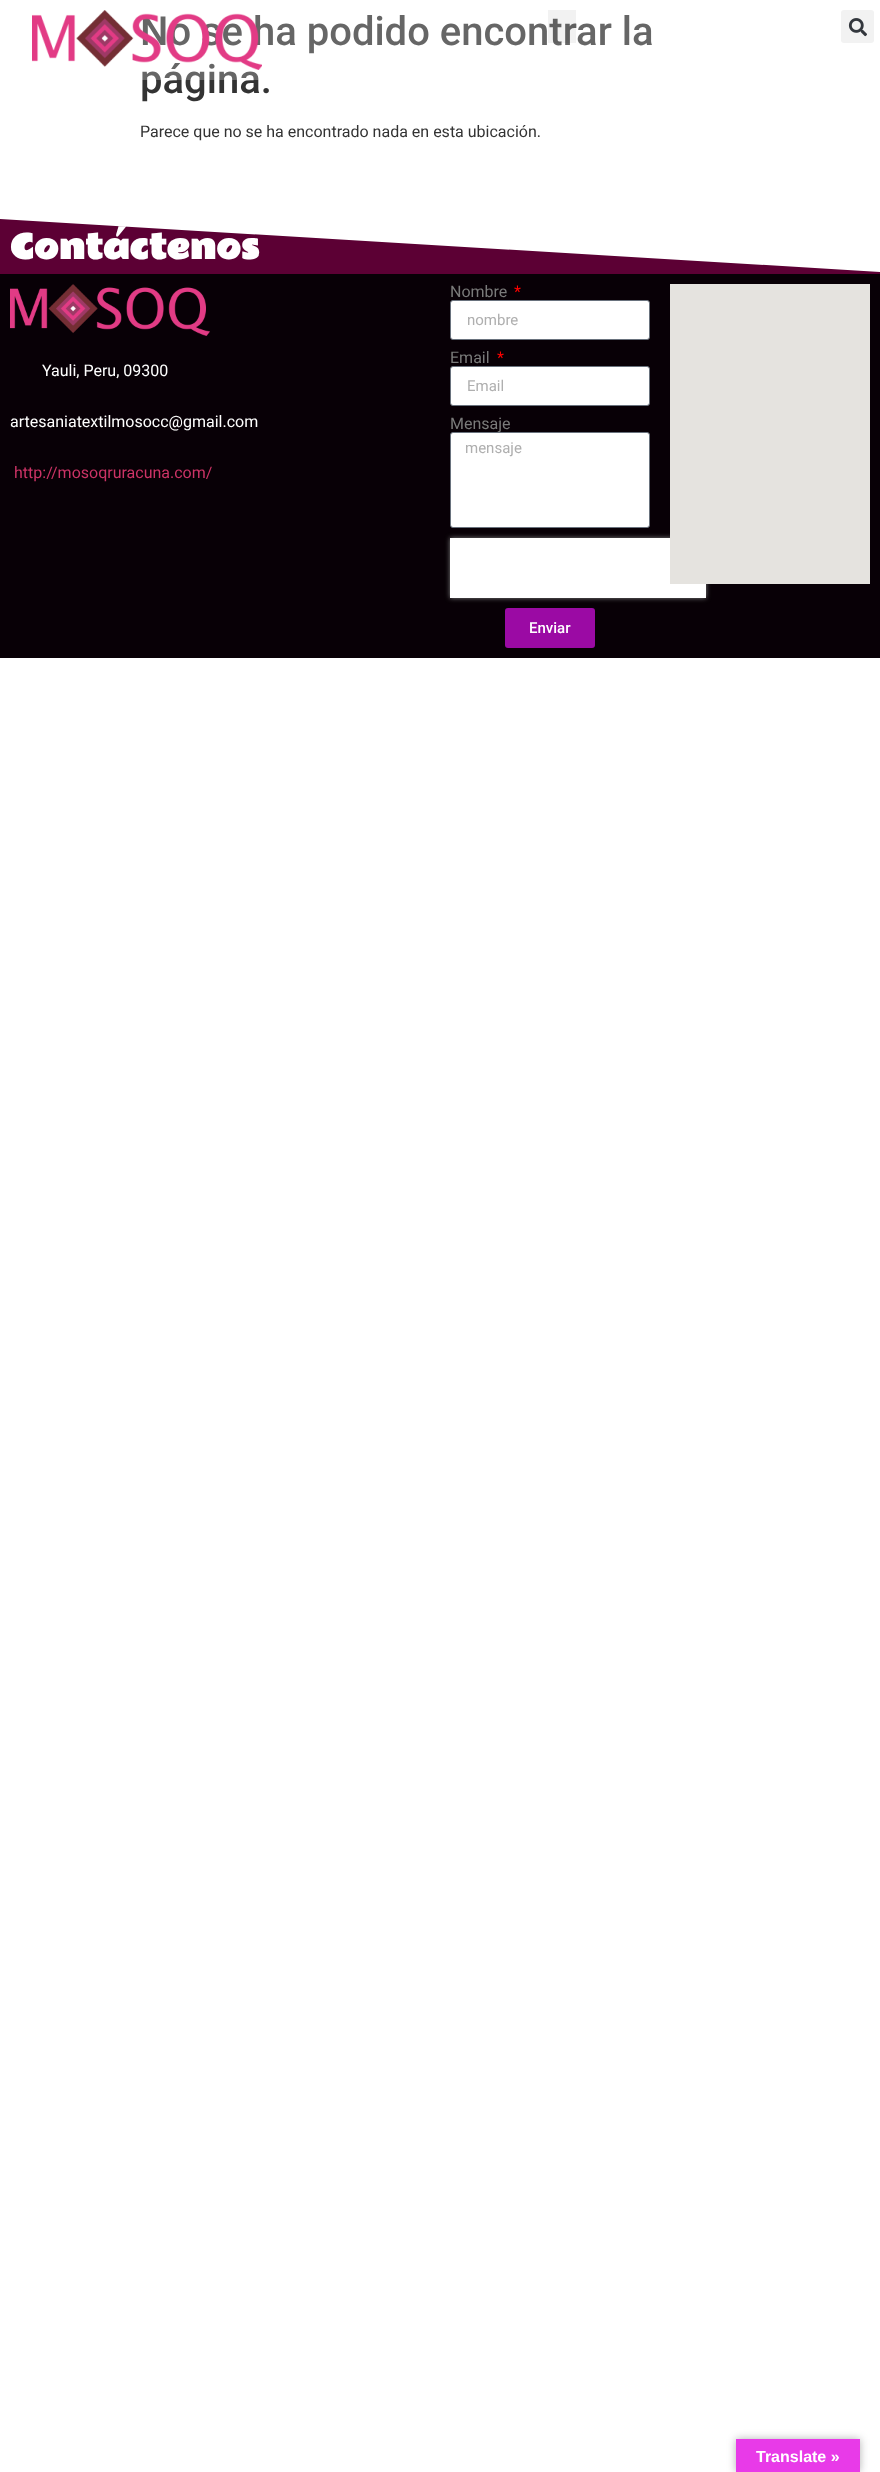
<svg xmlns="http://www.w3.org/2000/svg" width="880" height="2472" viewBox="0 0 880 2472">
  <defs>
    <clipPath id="clip1"><path d="M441 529H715V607H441ZM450 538H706V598H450Z" clip-rule="evenodd"/></clipPath>
  </defs>
  <rect width="100%" height="100%" fill="rgb(255,255,255)"/>
  <g font-family="Roboto" font-size="40" font-weight="500" fill="rgb(51,51,51)">
    <text>
      <tspan x="140" y="45">No se ha podido encontrar la</tspan>
      <tspan x="140" y="93">página.</tspan>
    </text>
  </g>
  <rect x="142" y="15" width="510" height="65" fill="rgba(255,255,255,0.25)"/>
  <image x="32" y="10" width="230" height="60" href="pic1.png"/>
  <rect x="548" y="10" width="28" height="33" fill="rgba(0,0,0,0.05)"/>
  <rect x="841" y="10" width="33" height="33" rx="3" fill="rgb(242,242,242)"/>
  <image x="848" y="18" width="19" height="19" href="pic2.png"/>
  <text x="140" y="137" font-family="Roboto" font-size="16" fill="rgb(51,51,51)">Parece que no se ha encontrado nada en esta ubicación.</text>
  <path d="M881 272V276H-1V219Z" fill="rgb(92,0,52)"/>
  <text x="10" y="259" font-family="Rammetto One" font-size="32" font-weight="bold" fill="rgb(255,255,255)">Contáctenos</text>
  <rect x="0" y="274" width="880" height="384" fill="rgb(8,0,6)"/>
  <image x="10" y="284" width="200" height="52" href="pic3.png"/>
  <g font-family="Roboto" font-size="16" fill="rgb(255,255,255)">
    <text x="42" y="376">Yauli, Peru, 09300</text>
    <text x="10" y="427">artesaniatextilmosocc@gmail.com</text>
  </g>
  <text x="14" y="478" font-family="Roboto" font-size="16" fill="rgb(204,51,102)">http://mosoqruracuna.com/</text>
  <text x="450" y="297" font-family="Roboto" font-size="16" fill="rgb(122,122,122)">Nombre</text>
  <text x="514" y="297" font-family="Roboto" font-size="16" fill="rgb(255,0,0)">*</text>
  <rect x="450.5" y="300.5" width="199" height="39" rx="2.5" fill="rgb(255,255,255)" stroke="rgb(105,114,125)"/>
  <text x="467" y="325" font-family="Roboto" font-size="15" fill="rgb(175,175,175)">nombre</text>
  <text x="450" y="363" font-family="Roboto" font-size="16" fill="rgb(122,122,122)">Email</text>
  <text x="497" y="363" font-family="Roboto" font-size="16" fill="rgb(255,0,0)">*</text>
  <rect x="450.5" y="366.5" width="199" height="39" rx="2.5" fill="rgb(255,255,255)" stroke="rgb(105,114,125)"/>
  <text x="467" y="391" font-family="Roboto" font-size="15" fill="rgb(175,175,175)">Email</text>
  <text x="450" y="429" font-family="Roboto" font-size="16" fill="rgb(122,122,122)">Mensaje</text>
  <rect x="450.5" y="432.5" width="199" height="95" rx="2.5" fill="rgb(255,255,255)" stroke="rgb(105,114,125)"/>
  <text x="465" y="453" font-family="Roboto" font-size="15" fill="rgb(175,175,175)">mensaje</text>
  <rect x="450" y="538" width="256" height="60" fill="rgb(255,255,255)"/>
  <g clip-path="url(#clip1)">
    <rect x="450" y="538" width="256" height="60" fill="rgb(128,128,128)" filter="blur(2.5px)"/>
  </g>
  <rect x="505" y="608" width="90" height="40" rx="3" fill="rgb(155,10,164)"/>
  <text x="529" y="633" font-family="Roboto" font-size="15" font-weight="500" fill="rgb(255,255,255)">Enviar</text>
  <rect x="670" y="284" width="200" height="300" fill="rgb(229,227,223)"/>
  <rect x="736" y="2439" width="124" height="33" fill="rgba(0,0,0,0.3)" filter="blur(4.5px)"/>
  <rect x="736" y="2439" width="124" height="33" fill="rgb(232,58,232)"/>
  <text x="756" y="2462" font-family="Liberation Sans" font-size="16" font-weight="bold" fill="rgb(255,255,255)">Translate »</text>
</svg>
